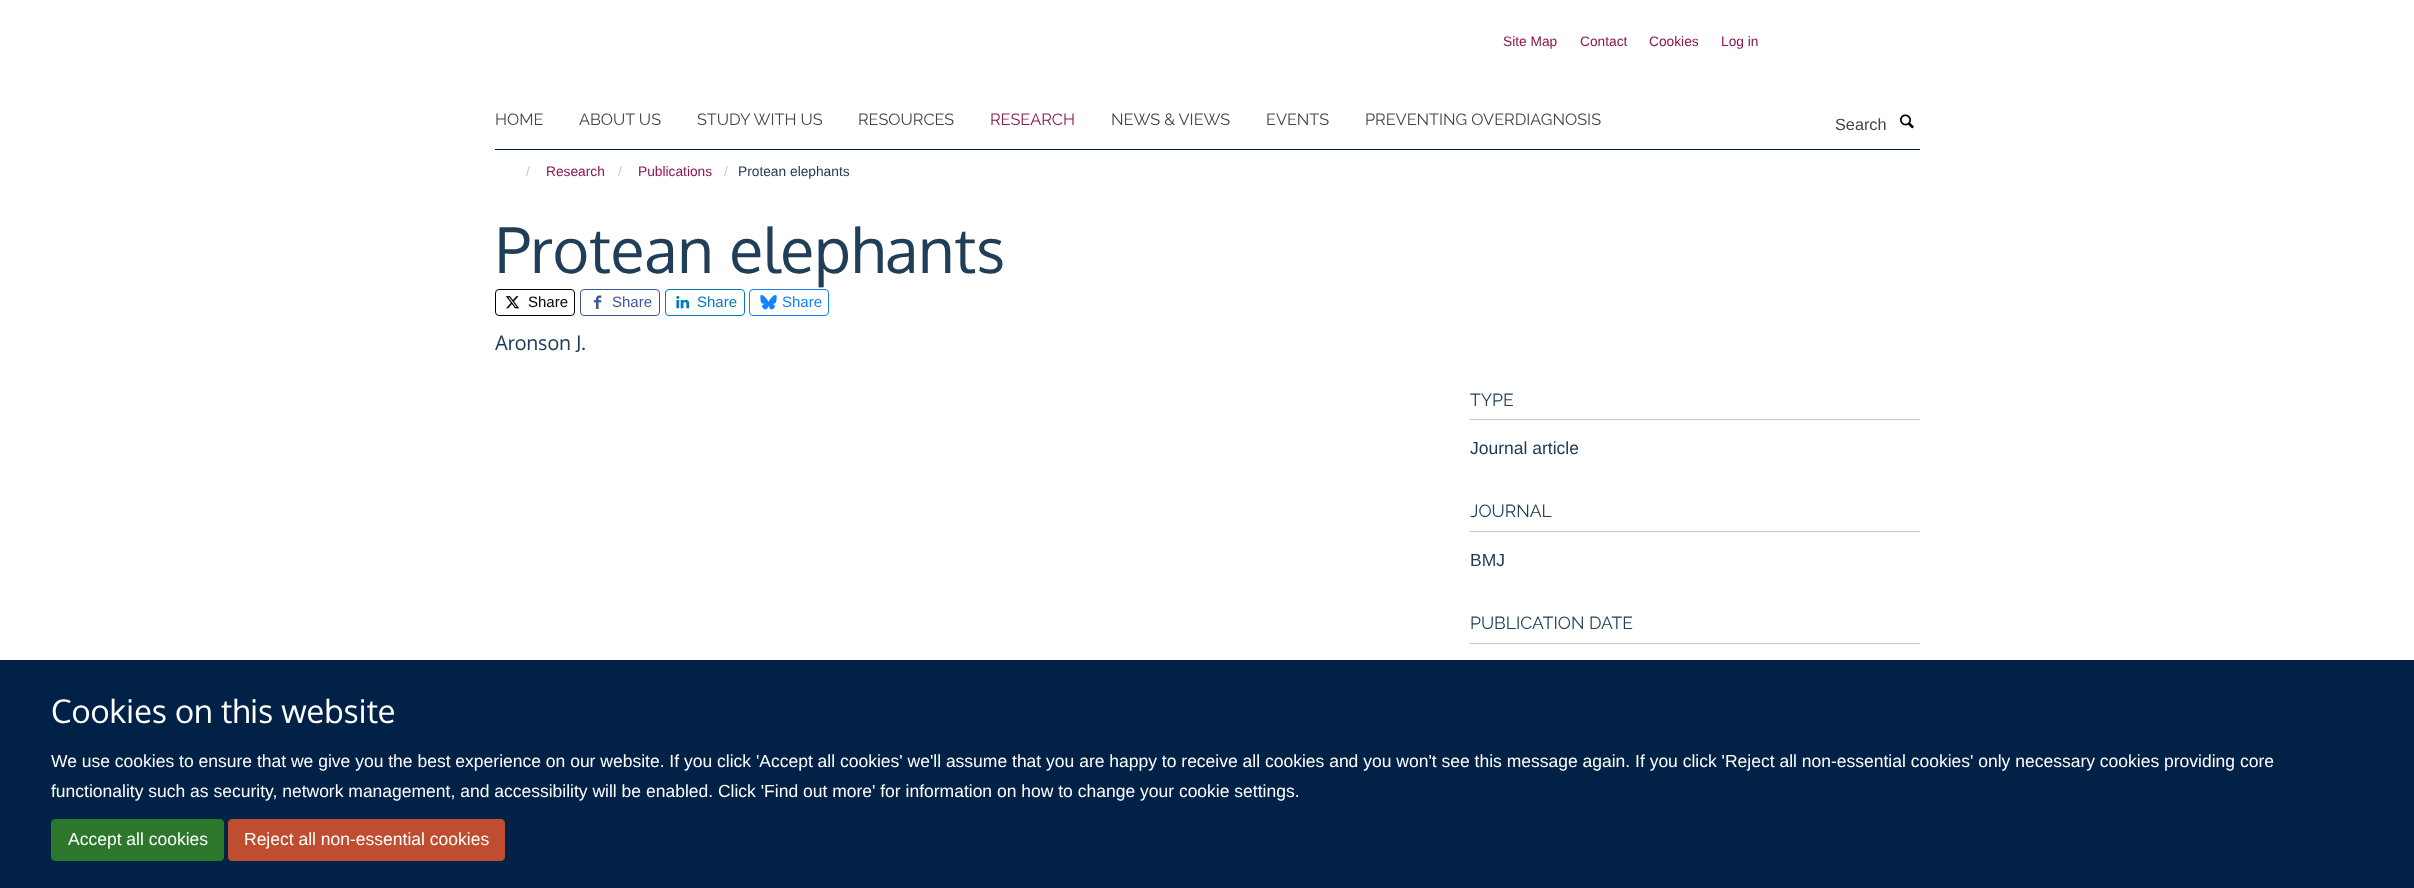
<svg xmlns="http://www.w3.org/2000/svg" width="2414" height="888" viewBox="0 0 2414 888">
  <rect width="100%" height="100%" fill="rgb(255,255,255)"/>
  <g font-family="Liberation Sans" font-size="13.75" fill="rgb(138,23,81)">
    <text x="1503" y="46">Site Map</text>
    <text x="1580" y="46">Contact</text>
    <text x="1649" y="46">Cookies</text>
    <text x="1721" y="46">Log in</text>
  </g>
  <rect x="495" y="149" width="1425" height="1" fill="rgb(1,33,70)"/>
  <g font-family="Raleway" font-size="16.25" font-weight="100" fill="rgb(68,68,68)">
    <text x="495" y="125">HOME</text>
    <text x="579" y="125">ABOUT US</text>
    <text x="697" y="125">STUDY WITH US</text>
    <text x="858" y="125">RESOURCES</text>
  </g>
  <text x="990" y="125" font-family="Raleway" font-size="16.25" font-weight="100" fill="rgb(138,23,81)">RESEARCH</text>
  <g font-family="Raleway" font-size="16.25" font-weight="100" fill="rgb(68,68,68)">
    <text x="1111" y="125">NEWS &amp; VIEWS</text>
    <text x="1266" y="125">EVENTS</text>
    <text x="1365" y="125">PREVENTING OVERDIAGNOSIS</text>
  </g>
  <text x="1835" y="130" font-family="Liberation Sans" font-size="16.25" fill="rgb(68,68,68)">Search</text>
  <image x="1900" y="114" width="14" height="15" href="pic1.png"/>
  <text x="526" y="176" font-family="Liberation Sans" font-size="13.75" fill="rgb(204,204,204)">/</text>
  <text x="546" y="176" font-family="Liberation Sans" font-size="13.75" fill="rgb(138,23,81)">Research</text>
  <text x="618" y="176" font-family="Liberation Sans" font-size="13.75" fill="rgb(204,204,204)">/</text>
  <text x="638" y="176" font-family="Liberation Sans" font-size="13.75" fill="rgb(138,23,81)">Publications</text>
  <text x="724" y="176" font-family="Liberation Sans" font-size="13.75" fill="rgb(204,204,204)">/</text>
  <text x="738" y="176" font-family="Liberation Sans" font-size="13.75" fill="rgb(29,56,80)">Protean elephants</text>
  <text x="495" y="273" font-family="Oxygen" font-size="62.5" fill="rgb(32,62,88)">Protean elephants</text>
  <rect x="495.5" y="289.5" width="79" height="26" rx="3.5" fill="none" stroke="rgb(0,0,0)"/>
  <image x="505" y="296" width="15" height="13" href="pic2.png"/>
  <text x="528" y="307" font-family="Liberation Sans" font-size="15" fill="rgb(0,0,0)">Share</text>
  <rect x="580.5" y="289.5" width="79" height="26" rx="3.5" fill="none" stroke="rgb(59,89,152)"/>
  <image x="593" y="295" width="9" height="14" href="pic3.png"/>
  <text x="612" y="307" font-family="Liberation Sans" font-size="15" fill="rgb(59,89,152)">Share</text>
  <rect x="665.5" y="289.5" width="79" height="26" rx="3.5" fill="none" stroke="rgb(0,123,182)"/>
  <image x="676" y="296" width="14" height="13" href="pic4.png"/>
  <text x="697" y="307" font-family="Liberation Sans" font-size="15" fill="rgb(0,123,182)">Share</text>
  <rect x="749.5" y="289.5" width="79" height="26" rx="3.5" fill="none" stroke="rgb(17,131,252)"/>
  <image x="760" y="295" width="17" height="15" href="pic5.png"/>
  <text x="782" y="307" font-family="Liberation Sans" font-size="15" fill="rgb(17,131,252)">Share</text>
  <text x="495" y="350" font-family="Oxygen" font-size="20" fill="rgb(32,62,88)">Aronson J.</text>
  <rect x="1470" y="419" width="450" height="1" fill="rgb(198,202,207)"/>
  <text x="1470" y="406" font-family="Raleway" font-size="17.5" font-weight="100" fill="rgb(32,62,88)">TYPE</text>
  <text x="1470" y="454" font-family="Liberation Sans" font-size="17.5" fill="rgb(29,56,80)">Journal article</text>
  <rect x="1470" y="531" width="450" height="1" fill="rgb(198,202,207)"/>
  <text x="1470" y="517" font-family="Raleway" font-size="17.5" font-weight="100" fill="rgb(32,62,88)">JOURNAL</text>
  <text x="1470" y="566" font-family="Liberation Sans" font-size="17.5" fill="rgb(29,56,80)">BMJ</text>
  <rect x="1470" y="643" width="450" height="1" fill="rgb(198,202,207)"/>
  <text x="1470" y="629" font-family="Raleway" font-size="17.5" font-weight="100" fill="rgb(32,62,88)">PUBLICATION DATE</text>
  <rect x="0" y="660" width="2414" height="228" fill="rgb(1,33,70)"/>
  <text x="51" y="723" font-family="Oxygen" font-size="32.5" fill="rgb(255,255,255)">Cookies on this website</text>
  <g font-family="Liberation Sans" font-size="17.5" fill="rgb(255,255,255)">
    <text>
      <tspan x="51" y="767">We use cookies to ensure that we give you the best experience on our website. If you click 'Accept all cookies' we'll assume that you are happy to receive all cookies and you won't see this message again. If you click 'Reject all non-essential cookies' only necessary cookies providing core</tspan>
      <tspan x="51" y="797">functionality such as security, network management, and accessibility will be enabled. Click 'Find out more' for information on how to change your cookie settings.</tspan>
    </text>
  </g>
  <rect x="51.5" y="819.5" width="172" height="41" rx="3.5" fill="rgb(45,119,45)" stroke="rgb(45,119,45)"/>
  <text x="68" y="845" font-family="Liberation Sans" font-size="17.5" fill="rgb(255,255,255)">Accept all cookies</text>
  <rect x="228.5" y="819.5" width="276" height="41" rx="3.5" fill="rgb(191,78,48)" stroke="rgb(191,78,48)"/>
  <text x="244" y="845" font-family="Liberation Sans" font-size="17.5" fill="rgb(255,255,255)">Reject all non-essential cookies</text>
</svg>
